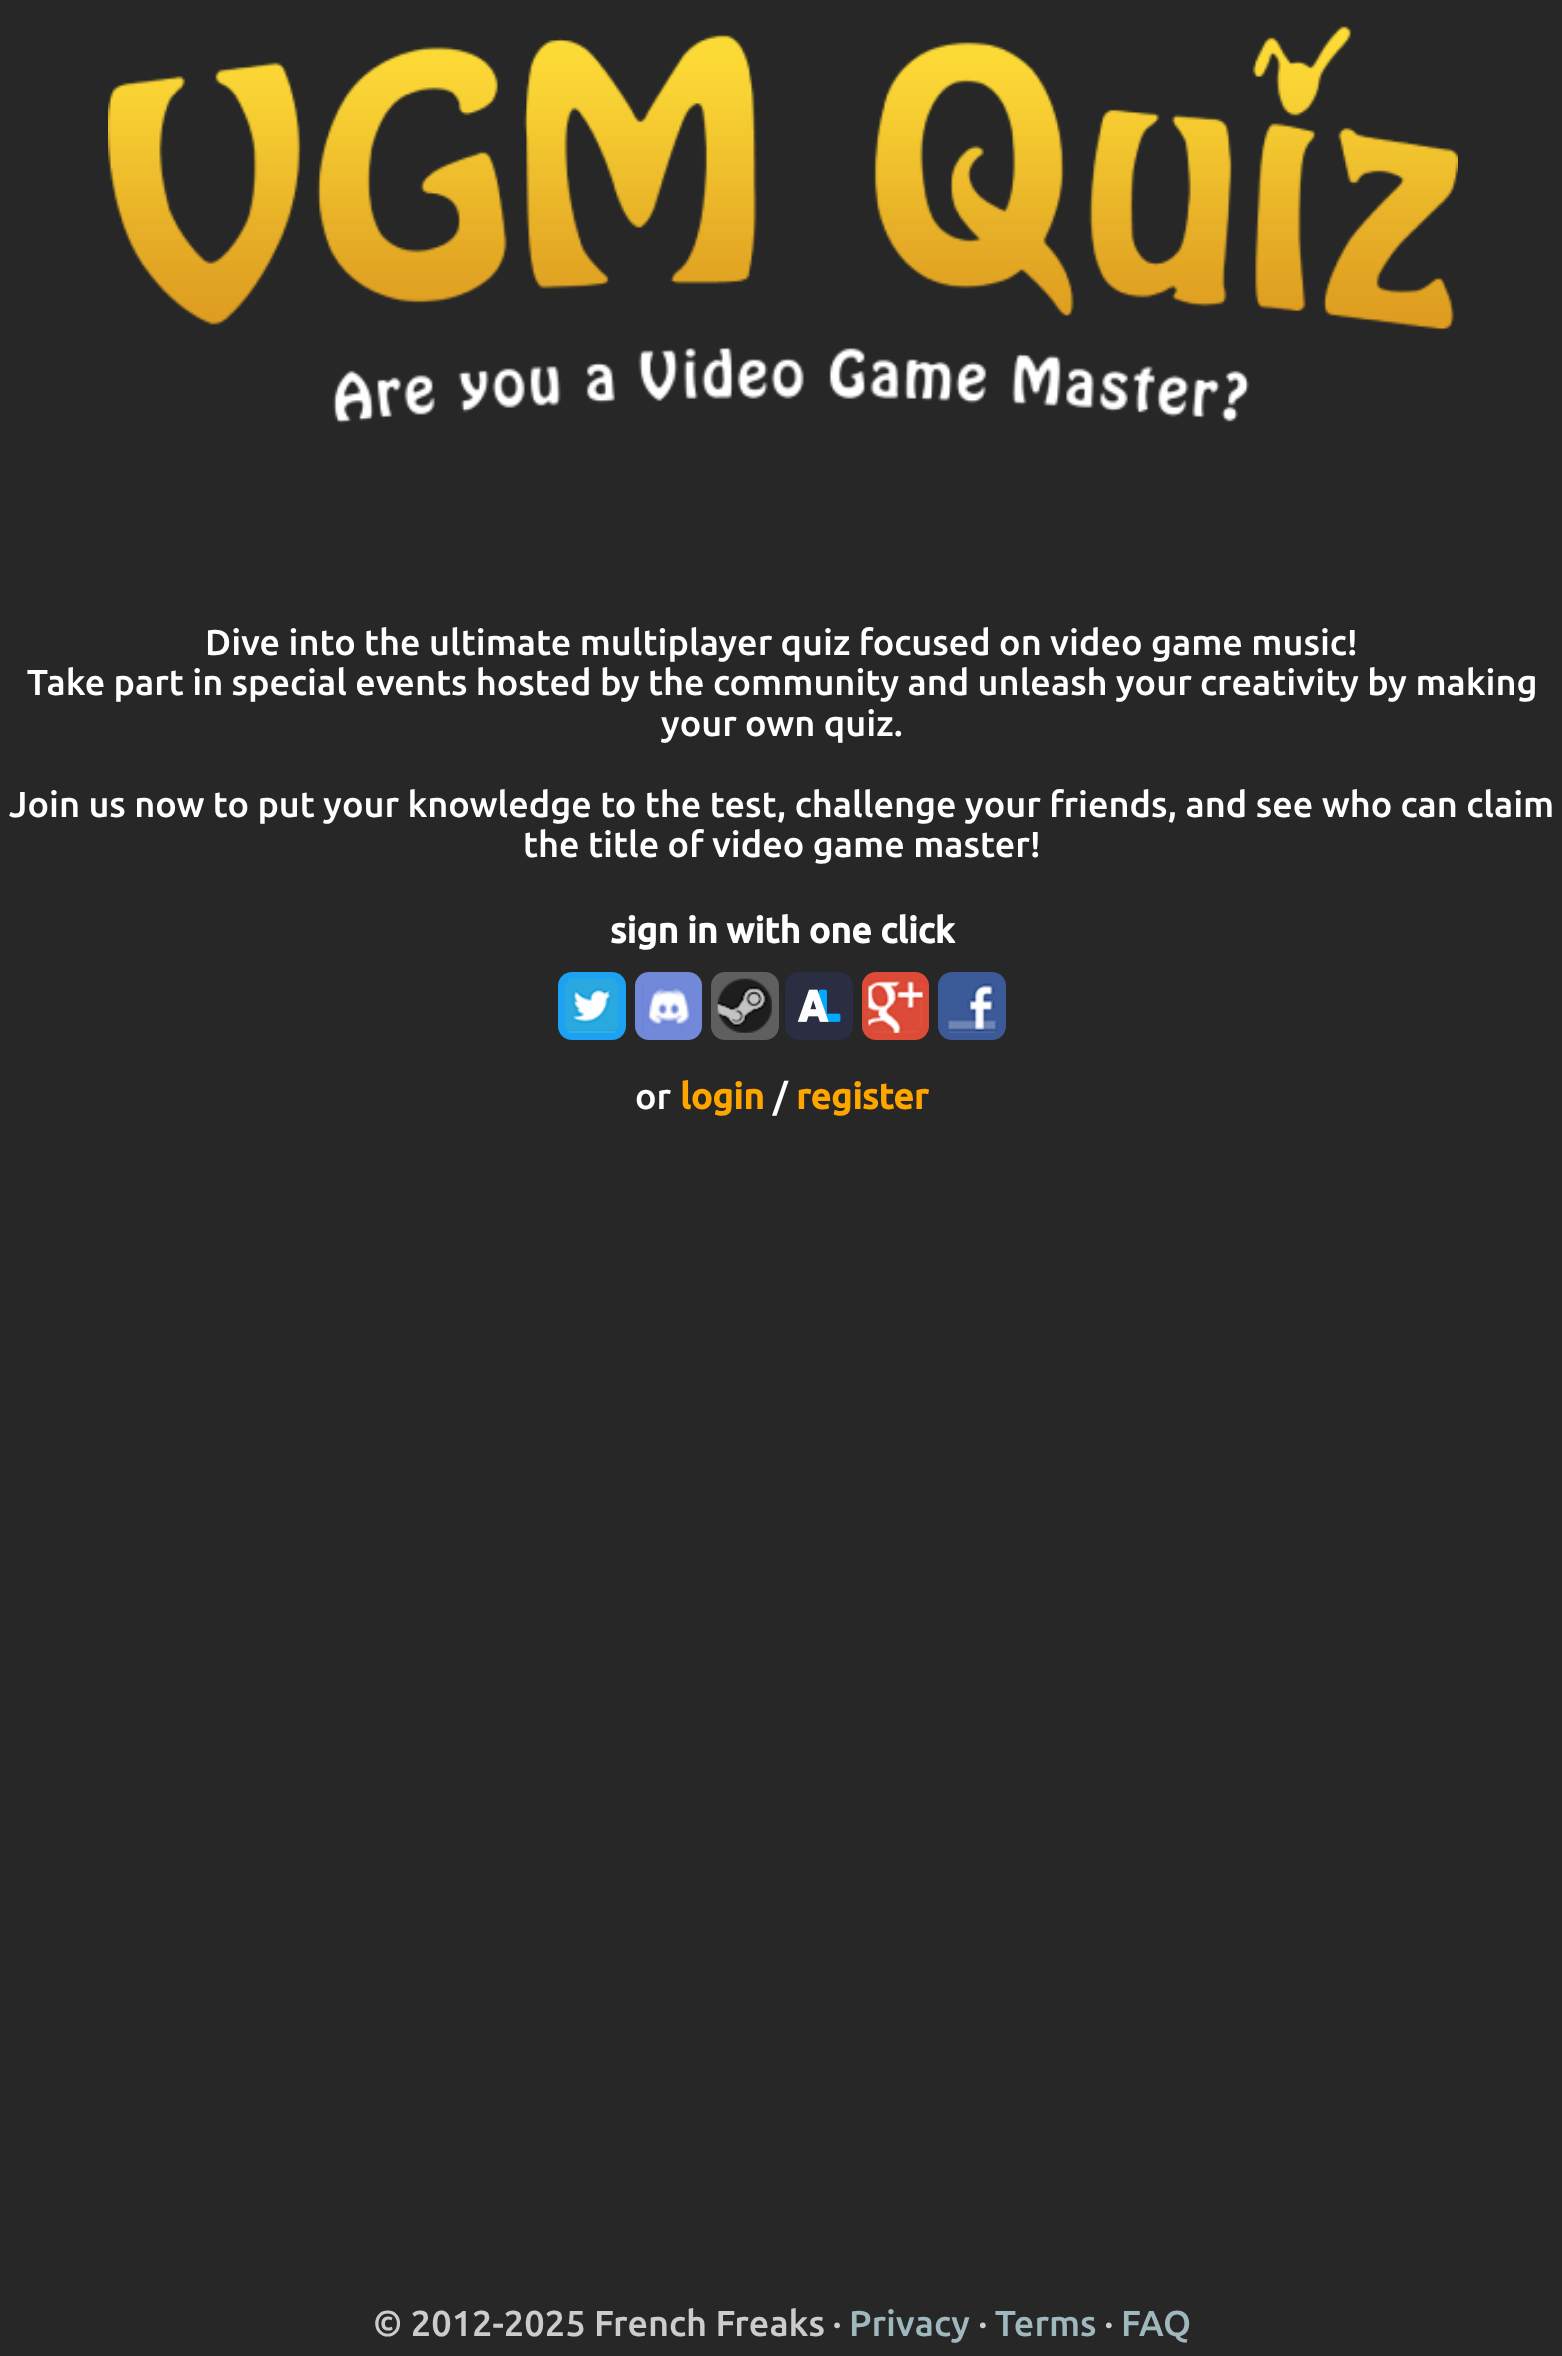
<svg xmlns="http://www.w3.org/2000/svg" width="1562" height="2356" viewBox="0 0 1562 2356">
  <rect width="100%" height="100%" fill="rgb(39,39,39)"/>
  <image x="108" y="26" width="1350" height="398" href="pic1.png"/>
  <g font-family="Ubuntu" font-size="36" font-weight="500" fill="rgb(255,255,255)">
    <text x="205" y="655">Dive into the ultimate multiplayer quiz focused on video game music!</text>
    <text x="27" y="695">Take part in special events hosted by the community and unleash your creativity by making</text>
    <text x="661" y="736">your own quiz.</text>
    <text x="9" y="817">Join us now to put your knowledge to the test, challenge your friends, and see who can claim</text>
    <text x="523" y="857">the title of video game master!</text>
  </g>
  <text x="610" y="943" font-family="Ubuntu" font-size="36" font-weight="bold" fill="rgb(255,255,255)">sign in with one click</text>
  <rect x="558" y="972" width="68" height="68" rx="14" fill="rgb(29,161,242)"/>
  <image x="564" y="978" width="55" height="55" href="pic2.png"/>
  <rect x="635" y="972" width="67" height="68" rx="14" fill="rgb(114,137,218)"/>
  <image x="642" y="982" width="49" height="50" href="pic3.png"/>
  <rect x="711" y="972" width="68" height="68" rx="14" fill="rgb(95,95,95)"/>
  <image x="717" y="978" width="55" height="55" href="pic4.png"/>
  <rect x="785" y="972" width="68" height="68" rx="14" fill="rgb(43,45,66)"/>
  <image x="797" y="989" width="44" height="33" href="pic5.png"/>
  <rect x="862" y="972" width="67" height="68" rx="14" fill="rgb(220,75,56)"/>
  <image x="868" y="979" width="55" height="54" href="pic6.png"/>
  <rect x="938" y="972" width="68" height="68" rx="14" fill="rgb(60,90,152)"/>
  <image x="947" y="979" width="51" height="54" href="pic7.png"/>
  <text x="635" y="1109" font-family="Ubuntu" font-size="36" font-weight="500" fill="rgb(255,255,255)">or</text>
  <text x="680" y="1109" font-family="Ubuntu" font-size="36" font-weight="bold" fill="rgb(255,165,0)">login</text>
  <text x="773" y="1109" font-family="Ubuntu" font-size="36" font-weight="500" fill="rgb(255,255,255)">/</text>
  <text x="796" y="1109" font-family="Ubuntu" font-size="36" font-weight="bold" fill="rgb(255,165,0)">register</text>
  <text x="373" y="2336" font-family="Ubuntu" font-size="36" font-weight="500" fill="rgb(204,204,204)">© 2012-2025 French Freaks ·</text>
  <text x="849" y="2336" font-family="Ubuntu" font-size="36" font-weight="500" fill="rgb(158,184,190)">Privacy</text>
  <text x="979" y="2336" font-family="Ubuntu" font-size="36" font-weight="500" fill="rgb(204,204,204)">·</text>
  <text x="995" y="2336" font-family="Ubuntu" font-size="36" font-weight="500" fill="rgb(158,184,190)">Terms</text>
  <text x="1105" y="2336" font-family="Ubuntu" font-size="36" font-weight="500" fill="rgb(204,204,204)">·</text>
  <text x="1121" y="2336" font-family="Ubuntu" font-size="36" font-weight="500" fill="rgb(158,184,190)">FAQ</text>
</svg>
